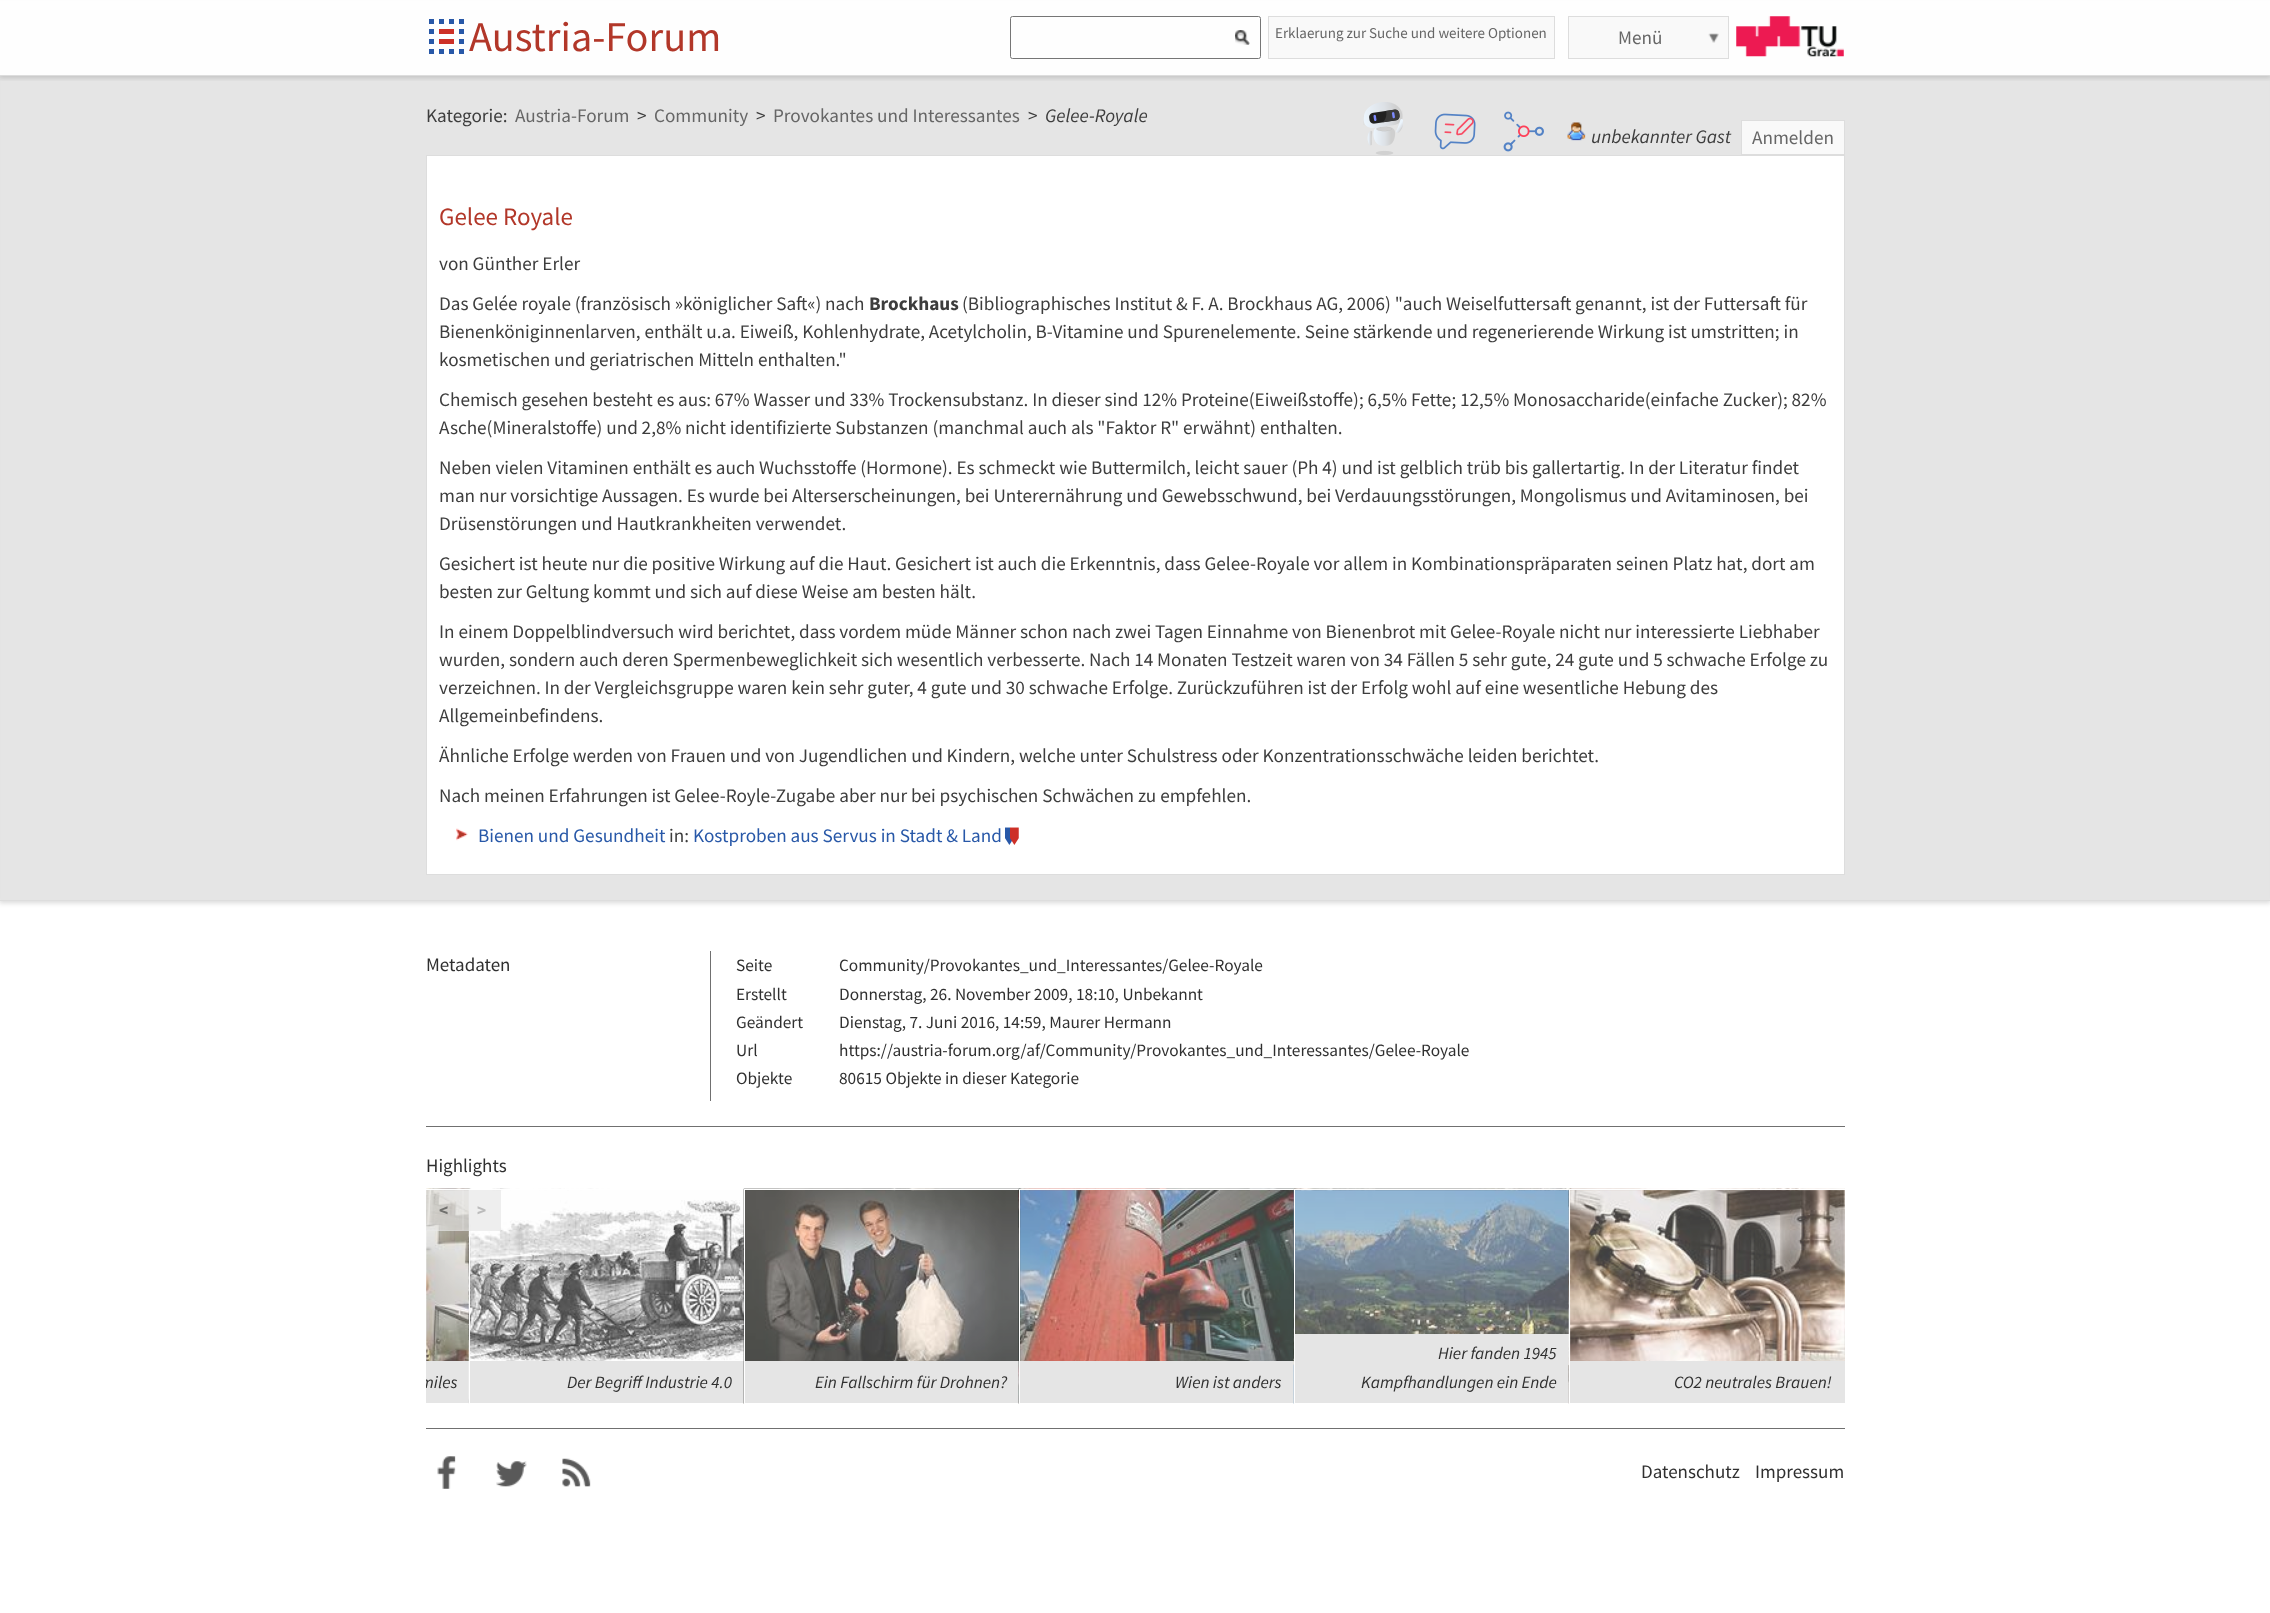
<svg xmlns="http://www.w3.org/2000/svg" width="2270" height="1613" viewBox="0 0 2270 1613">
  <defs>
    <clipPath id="clip1"><rect x="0" y="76" width="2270" height="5"/></clipPath>
    <clipPath id="clip2"><rect x="426" y="1128" width="1419" height="300"/></clipPath>
  </defs>
  <rect width="100%" height="100%" fill="rgb(255,255,255)"/>
  <rect x="-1" y="-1" width="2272" height="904" fill="rgba(0,0,0,0.15)" filter="blur(2.5px)"/>
  <rect x="1" y="76" width="2268" height="824" fill="rgb(229,229,229)"/>
  <rect x="0" y="1" width="2270" height="74" fill="rgb(254,254,254)"/>
  <rect x="0" y="0" width="2270" height="1" fill="rgb(253,253,253)"/>
  <g clip-path="url(#clip1)">
    <rect x="-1" y="-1" width="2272" height="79" fill="rgba(0,0,0,0.15)" filter="blur(2.5px)"/>
  </g>
  <rect x="0" y="75" width="2270" height="1" fill="rgb(221,221,221)"/>
  <image x="429" y="19" width="35" height="35" href="pic1.png"/>
  <text x="469" y="51" font-family="Source Sans Pro" font-size="42.25" fill="rgb(178,55,41)">Austria-Forum</text>
  <rect x="1010.5" y="16.5" width="250" height="42" rx="2" fill="none" stroke="rgb(118,118,118)"/>
  <image x="1235" y="30" width="15" height="15" href="pic2.png"/>
  <rect x="1268.5" y="16.5" width="286" height="42" fill="rgb(249,249,249)" stroke="rgb(221,221,221)"/>
  <text x="1275" y="38" font-family="Source Sans Pro" font-size="15" fill="rgb(102,102,102)">Erklaerung zur Suche und weitere Optionen</text>
  <rect x="1568.5" y="16.5" width="160" height="42" fill="rgb(249,249,249)" stroke="rgb(221,221,221)"/>
  <image x="1708" y="33" width="11" height="10" href="pic3.png"/>
  <text x="1618" y="44" font-family="Source Sans Pro" font-size="19.2" fill="rgb(102,102,102)">Menü</text>
  <image x="1736" y="16" width="108" height="41" href="pic4.png"/>
  <rect x="0" y="900" width="2270" height="1" fill="rgb(221,221,221)"/>
  <text x="426" y="122" font-family="Source Sans Pro" font-size="19.2" fill="rgb(61,61,61)">Kategorie:</text>
  <text x="515" y="122" font-family="Source Sans Pro" font-size="19.2" fill="rgb(102,102,102)">Austria-Forum</text>
  <text x="637" y="122" font-family="Source Sans Pro" font-size="19.2" fill="rgb(61,61,61)">&gt;</text>
  <text x="654" y="122" font-family="Source Sans Pro" font-size="19.2" fill="rgb(102,102,102)">Community</text>
  <text x="756" y="122" font-family="Source Sans Pro" font-size="19.2" fill="rgb(61,61,61)">&gt;</text>
  <text x="773" y="122" font-family="Source Sans Pro" font-size="19.2" fill="rgb(102,102,102)">Provokantes und Interessantes</text>
  <text x="1028" y="122" font-family="Source Sans Pro" font-size="19.2" fill="rgb(61,61,61)">&gt;</text>
  <text x="1045" y="122" font-family="Source Sans Pro" font-size="19.2" font-style="italic" fill="rgb(61,61,61)">Gelee-Royale</text>
  <image x="1363" y="102" width="40" height="53" href="pic5.png"/>
  <image x="1434" y="113" width="42" height="37" href="pic6.png"/>
  <image x="1503" y="111" width="41" height="41" href="pic7.png"/>
  <image x="1567" y="122" width="19" height="19" href="pic8.png"/>
  <text x="1591" y="143" font-family="Source Sans Pro" font-size="19.2" font-style="italic" fill="rgb(61,61,61)">unbekannter Gast</text>
  <rect x="1741.5" y="120.5" width="103" height="34" fill="rgb(249,249,249)" stroke="rgb(221,221,221)"/>
  <text x="1752" y="144" font-family="Source Sans Pro" font-size="19.2" fill="rgb(102,102,102)">Anmelden</text>
  <rect x="426.5" y="155.5" width="1418" height="719" fill="rgb(255,255,255)" stroke="rgb(221,221,221)"/>
  <text x="439" y="225" font-family="Source Sans Pro" font-size="25" fill="rgb(178,55,41)">Gelee Royale</text>
  <g font-family="Source Sans Pro" font-size="19.2" fill="rgb(61,61,61)">
    <text x="439" y="270">von Günther Erler</text>
    <text x="439" y="310">Das Gelée royale (französisch »königlicher Saft«) nach</text>
  </g>
  <text x="869" y="310" font-family="Source Sans Pro" font-size="19.2" font-weight="bold" fill="rgb(61,61,61)">Brockhaus</text>
  <g font-family="Source Sans Pro" font-size="19.2" fill="rgb(61,61,61)">
    <text x="962" y="310">(Bibliographisches Institut &amp; F. A. Brockhaus AG, 2006) "auch Weiselfuttersaft genannt, ist der Futtersaft für</text>
    <text>
      <tspan x="439" y="338">Bienenköniginnenlarven, enthält u.a. Eiweiß, Kohlenhydrate, Acetylcholin, B-Vitamine und Spurenelemente. Seine stärkende und regenerierende Wirkung ist umstritten; in</tspan>
      <tspan x="439" y="366">kosmetischen und geriatrischen Mitteln enthalten."</tspan>
    </text>
    <text>
      <tspan x="439" y="406">Chemisch gesehen besteht es aus: 67% Wasser und 33% Trockensubstanz. In dieser sind 12% Proteine(Eiweißstoffe); 6,5% Fette; 12,5% Monosaccharide(einfache Zucker); 82%</tspan>
      <tspan x="439" y="434">Asche(Mineralstoffe) und 2,8% nicht identifizierte Substanzen (manchmal auch als "Faktor R" erwähnt) enthalten.</tspan>
    </text>
    <text>
      <tspan x="439" y="474">Neben vielen Vitaminen enthält es auch Wuchsstoffe (Hormone). Es schmeckt wie Buttermilch, leicht sauer (Ph 4) und ist gelblich trüb bis gallertartig. In der Literatur findet</tspan>
      <tspan x="439" y="502">man nur vorsichtige Aussagen. Es wurde bei Alterserscheinungen, bei Unterernährung und Gewebsschwund, bei Verdauungsstörungen, Mongolismus und Avitaminosen, bei</tspan>
      <tspan x="439" y="530">Drüsenstörungen und Hautkrankheiten verwendet.</tspan>
    </text>
    <text>
      <tspan x="439" y="570">Gesichert ist heute nur die positive Wirkung auf die Haut. Gesichert ist auch die Erkenntnis, dass Gelee-Royale vor allem in Kombinationspräparaten seinen Platz hat, dort am</tspan>
      <tspan x="439" y="598">besten zur Geltung kommt und sich auf diese Weise am besten hält.</tspan>
    </text>
    <text>
      <tspan x="439" y="638">In einem Doppelblindversuch wird berichtet, dass vordem müde Männer schon nach zwei Tagen Einnahme von Bienenbrot mit Gelee-Royale nicht nur interessierte Liebhaber</tspan>
      <tspan x="439" y="666">wurden, sondern auch deren Spermenbeweglichkeit sich wesentlich verbesserte. Nach 14 Monaten Testzeit waren von 34 Fällen 5 sehr gute, 24 gute und 5 schwache Erfolge zu</tspan>
      <tspan x="439" y="694">verzeichnen. In der Vergleichsgruppe waren kein sehr guter, 4 gute und 30 schwache Erfolge. Zurückzuführen ist der Erfolg wohl auf eine wesentliche Hebung des</tspan>
      <tspan x="439" y="722">Allgemeinbefindens.</tspan>
    </text>
    <text x="439" y="762">Ähnliche Erfolge werden von Frauen und von Jugendlichen und Kindern, welche unter Schulstress oder Konzentrationsschwäche leiden berichtet.</text>
    <text x="439" y="802">Nach meinen Erfahrungen ist Gelee-Royle-Zugabe aber nur bei psychischen Schwächen zu empfehlen.</text>
  </g>
  <image x="456" y="828" width="12" height="13" href="pic9.png"/>
  <text x="478" y="842" font-family="Source Sans Pro" font-size="19.2" fill="rgb(40,88,168)">Bienen und Gesundheit</text>
  <text x="669" y="842" font-family="Source Sans Pro" font-size="19.2" fill="rgb(61,61,61)">in:</text>
  <text x="693" y="842" font-family="Source Sans Pro" font-size="19.2" fill="rgb(40,88,168)">Kostproben aus Servus in Stadt &amp; Land</text>
  <image x="1005" y="827" width="14" height="18" href="pic10.png"/>
  <text x="426" y="971" font-family="Source Sans Pro" font-size="19" fill="rgb(48,48,48)">Metadaten</text>
  <rect x="710" y="951" width="1" height="150" fill="rgb(112,112,112)"/>
  <g font-family="Source Sans Pro" font-size="17.3" fill="rgb(48,48,48)">
    <text x="736" y="971">Seite</text>
    <text x="839" y="971">Community/Provokantes_und_Interessantes/Gelee-Royale</text>
    <text x="736" y="1000">Erstellt</text>
    <text x="839" y="1000">Donnerstag, 26. November 2009, 18:10, Unbekannt</text>
    <text x="736" y="1028">Geändert</text>
    <text x="839" y="1028">Dienstag, 7. Juni 2016, 14:59, Maurer Hermann</text>
    <text x="736" y="1056">Url</text>
    <text x="839" y="1056">https://austria-forum.org/af/Community/Provokantes_und_Interessantes/Gelee-Royale</text>
    <text x="736" y="1084">Objekte</text>
    <text x="839" y="1084">80615 Objekte in dieser Kategorie</text>
  </g>
  <rect x="426" y="1126" width="1419" height="1" fill="rgb(112,112,112)"/>
  <text x="426" y="1172" font-family="Source Sans Pro" font-size="19" fill="rgb(48,48,48)">Highlights</text>
  <image x="426" y="1188" width="46" height="173" href="pic11.png"/>
  <g clip-path="url(#clip2)">
    <rect x="194.5" y="1189.5" width="276" height="214" fill="none" stroke="rgb(255,255,255)"/>
  </g>
  <rect x="426" y="1361" width="43" height="42" fill="rgb(229,229,229)"/>
  <image x="468" y="1188" width="279" height="216" href="pic12.png"/>
  <rect x="469.5" y="1189.5" width="276" height="214" fill="none" stroke="rgb(255,255,255)"/>
  <rect x="426" y="1190" width="75" height="41" fill="rgba(229,229,229,0.65)"/>
  <path d="M464 1190V1231L462 1230V1190Z" fill="rgba(255,255,255,0.12)"/>
  <path d="M464 1231H426V1230H462.5Z" fill="rgba(255,255,255,0.12)"/>
  <text x="439" y="1216" font-family="Source Sans Pro" font-size="17.3" font-weight="bold" fill="rgb(113,112,110)">&lt;</text>
  <path d="M501 1231H464V1230H500Z" fill="rgba(255,255,255,0.07)"/>
  <text x="477" y="1216" font-family="Source Sans Pro" font-size="17.3" font-weight="bold" fill="rgb(187,187,187)">&gt;</text>
  <g clip-path="url(#clip2)">
    <text x="420" y="1388" font-family="Source Sans Pro" font-size="17.3" font-style="italic" fill="rgb(48,48,48)">miles</text>
  </g>
  <rect x="470" y="1361" width="274" height="42" fill="rgb(229,229,229)"/>
  <text x="567" y="1388" font-family="Source Sans Pro" font-size="17.3" font-style="italic" fill="rgb(48,48,48)">Der Begriff Industrie 4.0</text>
  <image x="743" y="1188" width="279" height="216" href="pic13.png"/>
  <rect x="744.5" y="1189.5" width="276" height="214" fill="none" stroke="rgb(255,255,255)"/>
  <rect x="745" y="1361" width="274" height="42" fill="rgb(229,229,229)"/>
  <text x="815" y="1388" font-family="Source Sans Pro" font-size="17.3" font-style="italic" fill="rgb(48,48,48)">Ein Fallschirm für Drohnen?</text>
  <image x="1018" y="1188" width="279" height="216" href="pic14.png"/>
  <rect x="1019.5" y="1189.5" width="276" height="214" fill="none" stroke="rgb(255,255,255)"/>
  <rect x="1020" y="1361" width="274" height="42" fill="rgb(229,229,229)"/>
  <text x="1175" y="1388" font-family="Source Sans Pro" font-size="17.3" font-style="italic" fill="rgb(48,48,48)">Wien ist anders</text>
  <image x="1293" y="1188" width="279" height="216" href="pic15.png"/>
  <rect x="1294.5" y="1189.5" width="276" height="214" fill="none" stroke="rgb(255,255,255)"/>
  <rect x="1295" y="1334" width="274" height="69" fill="rgb(229,229,229)"/>
  <g font-family="Source Sans Pro" font-size="17.3" font-style="italic" fill="rgb(48,48,48)">
    <text x="1438" y="1359">Hier fanden 1945</text>
    <text x="1361" y="1388">Kampfhandlungen ein Ende</text>
  </g>
  <image x="1568" y="1188" width="277" height="216" href="pic16.png"/>
  <g clip-path="url(#clip2)">
    <rect x="1569.5" y="1189.5" width="276" height="214" fill="none" stroke="rgb(255,255,255)"/>
  </g>
  <rect x="1570" y="1361" width="275" height="42" fill="rgb(229,229,229)"/>
  <text x="1674" y="1388" font-family="Source Sans Pro" font-size="17.3" font-style="italic" fill="rgb(48,48,48)">CO2 neutrales Brauen!</text>
  <rect x="426" y="1428" width="1419" height="1" fill="rgb(112,112,112)"/>
  <image x="437" y="1456" width="19" height="33" href="pic17.png"/>
  <image x="496" y="1461" width="31" height="26" href="pic18.png"/>
  <image x="562" y="1458" width="29" height="29" href="pic19.png"/>
  <g font-family="Source Sans Pro" font-size="19" fill="rgb(48,48,48)">
    <text x="1641" y="1478">Datenschutz</text>
    <text x="1755" y="1478">Impressum</text>
  </g>
</svg>
